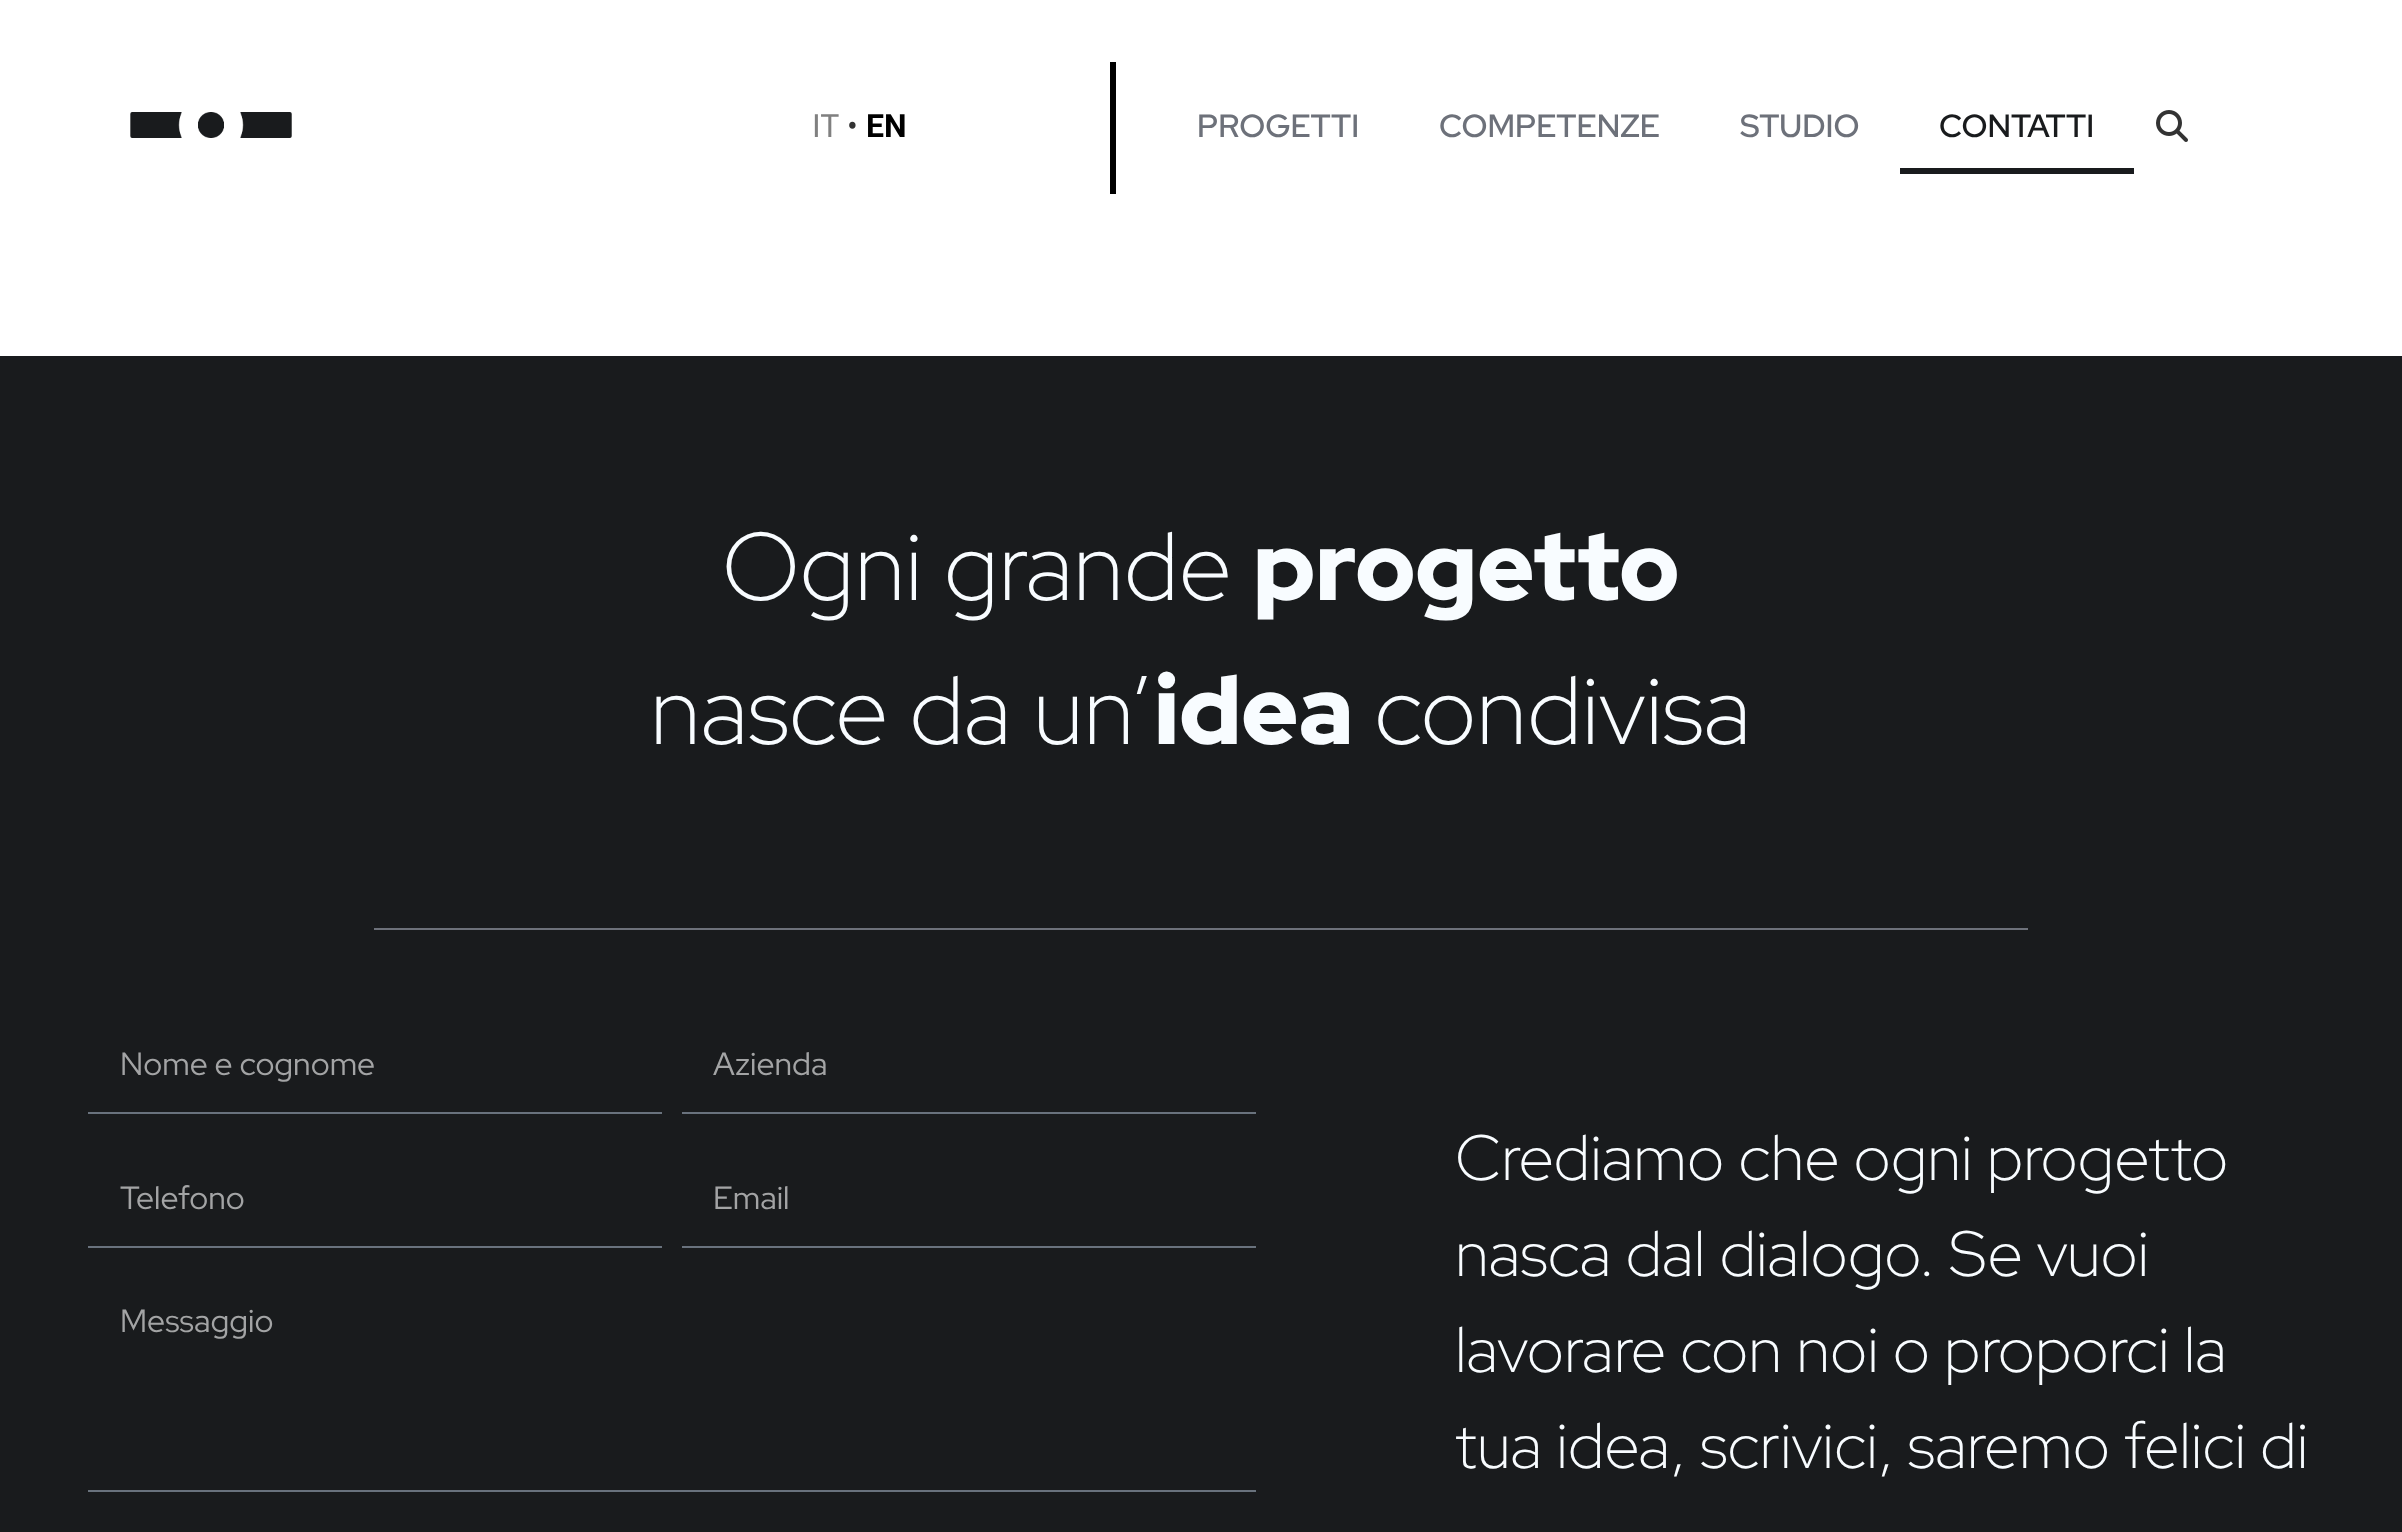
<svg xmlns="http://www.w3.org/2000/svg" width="2402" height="1532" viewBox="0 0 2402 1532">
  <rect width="100%" height="100%" fill="rgb(255,255,255)"/>
  <image x="130" y="112" width="162" height="26" href="pic1.png"/>
  <text x="812" y="137" font-family="Roboto" font-size="32" fill="rgb(128,128,128)">IT</text>
  <text x="847" y="137" font-family="Roboto" font-size="32" fill="rgb(51,51,51)">•</text>
  <text x="866" y="137" font-family="Roboto" font-size="32" font-weight="bold" fill="rgb(0,0,0)">EN</text>
  <rect x="1110" y="62" width="6" height="132" fill="rgb(0,0,0)"/>
  <g font-family="Red Hat Display" font-size="32" font-weight="600" fill="rgb(109,113,122)">
    <text x="1197" y="137">PROGETTI</text>
    <text x="1439" y="137">COMPETENZE</text>
    <text x="1740" y="137">STUDIO</text>
  </g>
  <text x="1939" y="137" font-family="Red Hat Display" font-size="32" font-weight="600" fill="rgb(25,27,29)">CONTATTI</text>
  <rect x="1900" y="168" width="234" height="6" fill="rgb(25,27,29)"/>
  <image x="2156" y="110" width="32" height="32" href="pic2.png"/>
  <rect x="0" y="356" width="2402" height="1176" fill="rgb(25,27,29)"/>
  <text x="722" y="600" font-family="Red Hat Display" font-size="96" font-weight="300" fill="rgb(248,252,255)">Ogni grande</text>
  <text x="1253" y="600" font-family="Red Hat Display" font-size="96" font-weight="900" fill="rgb(248,252,255)">progetto</text>
  <text x="650" y="744" font-family="Red Hat Display" font-size="96" font-weight="300" fill="rgb(248,252,255)">nasce da un’</text>
  <text x="1154" y="744" font-family="Red Hat Display" font-size="96" font-weight="900" fill="rgb(248,252,255)">idea</text>
  <text x="1374" y="744" font-family="Red Hat Display" font-size="96" font-weight="300" fill="rgb(248,252,255)">condivisa</text>
  <rect x="374" y="928" width="1654" height="2" fill="rgb(109,113,122)"/>
  <rect x="88" y="1112" width="574" height="2" fill="rgb(105,114,125)"/>
  <text x="120" y="1075" font-family="Red Hat Display" font-size="32" fill="rgb(163,164,165)">Nome e cognome</text>
  <rect x="682" y="1112" width="574" height="2" fill="rgb(105,114,125)"/>
  <text x="713" y="1075" font-family="Red Hat Display" font-size="32" fill="rgb(163,164,165)">Azienda</text>
  <rect x="88" y="1246" width="574" height="2" fill="rgb(105,114,125)"/>
  <text x="120" y="1209" font-family="Red Hat Display" font-size="32" fill="rgb(163,164,165)">Telefono</text>
  <rect x="682" y="1246" width="574" height="2" fill="rgb(105,114,125)"/>
  <text x="713" y="1209" font-family="Red Hat Display" font-size="32" fill="rgb(163,164,165)">Email</text>
  <rect x="88" y="1490" width="1168" height="2" fill="rgb(105,114,125)"/>
  <text x="120" y="1332" font-family="Red Hat Display" font-size="32" fill="rgb(163,164,165)">Messaggio</text>
  <g font-family="Red Hat Display" font-size="64" font-weight="300" fill="rgb(248,252,255)">
    <text>
      <tspan x="1455" y="1180">Crediamo che ogni progetto</tspan>
      <tspan x="1455" y="1276">nasca dal dialogo. Se vuoi</tspan>
      <tspan x="1455" y="1372">lavorare con noi o proporci la</tspan>
      <tspan x="1455" y="1468">tua idea, scrivici, saremo felici di</tspan>
    </text>
  </g>
</svg>
